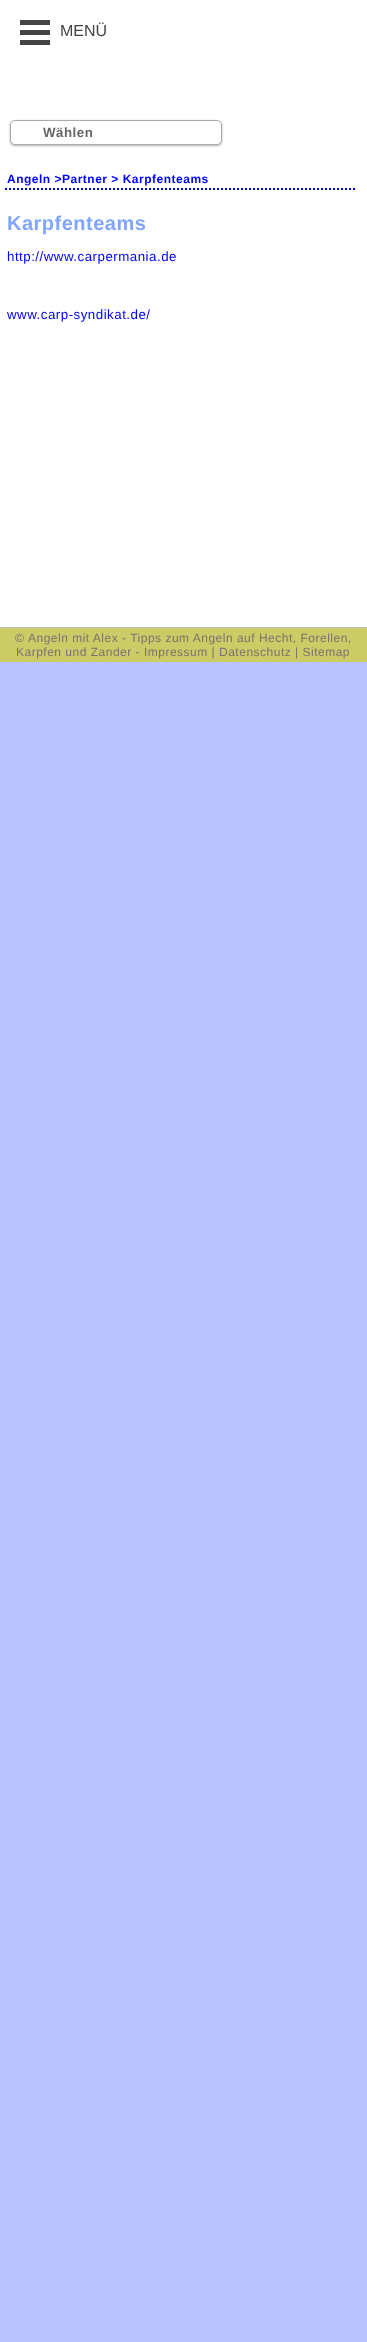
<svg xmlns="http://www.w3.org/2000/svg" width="367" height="2342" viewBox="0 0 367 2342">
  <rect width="100%" height="100%" fill="rgb(186,195,255)"/>
  <rect x="0" y="0" width="367" height="627" fill="rgb(255,255,255)"/>
  <rect x="20" y="20" width="30" height="5" fill="rgb(68,68,68)"/>
  <rect x="20" y="30" width="30" height="5" fill="rgb(68,68,68)"/>
  <rect x="20" y="40" width="30" height="5" fill="rgb(68,68,68)"/>
  <text x="60" y="36" font-family="Liberation Sans" font-size="16" fill="rgb(68,68,68)">MENÜ</text>
  <rect x="10" y="121" width="212" height="25" rx="5" fill="rgba(0,0,0,0.3)" filter="blur(1px)"/>
  <rect x="10.5" y="120.5" width="211" height="24" rx="4.5" fill="rgb(255,255,255)" stroke="rgb(170,170,170)"/>
  <text x="43" y="137" font-family="Liberation Sans" font-size="13.3" font-weight="bold" letter-spacing="0.5" fill="rgb(102,102,102)">Wählen</text>
  <path d="M5 189H357" fill="none" stroke="rgb(0,0,255)" stroke-width="2" stroke-dasharray="2 2"/>
  <text x="7" y="183" font-family="Liberation Sans" font-size="12" font-weight="bold" letter-spacing="0.5" fill="rgb(0,0,255)">Angeln &gt;Partner &gt; Karpfenteams</text>
  <text x="7" y="230" font-family="Liberation Sans" font-size="20" font-weight="bold" letter-spacing="0.5" fill="rgb(127,165,255)">Karpfenteams</text>
  <g font-family="Liberation Sans" font-size="13.3" letter-spacing="0.5" fill="rgb(0,0,255)">
    <text x="7" y="261">http://www.carpermania.de</text>
    <text x="7" y="319">www.carp-syndikat.de/</text>
  </g>
  <rect x="0" y="628" width="367" height="34" fill="rgb(204,204,102)"/>
  <rect x="0" y="627" width="367" height="1" fill="rgb(192,192,192)"/>
  <g font-family="Liberation Sans" font-size="12" letter-spacing="0.5" fill="rgb(127,111,111)">
    <text x="15" y="642">©</text>
    <text x="28" y="642">Angeln mit Alex - Tipps zum Angeln auf Hecht, Forellen,</text>
    <text x="16" y="656">Karpfen und Zander - Impressum | Datenschutz | Sitemap</text>
  </g>
</svg>
